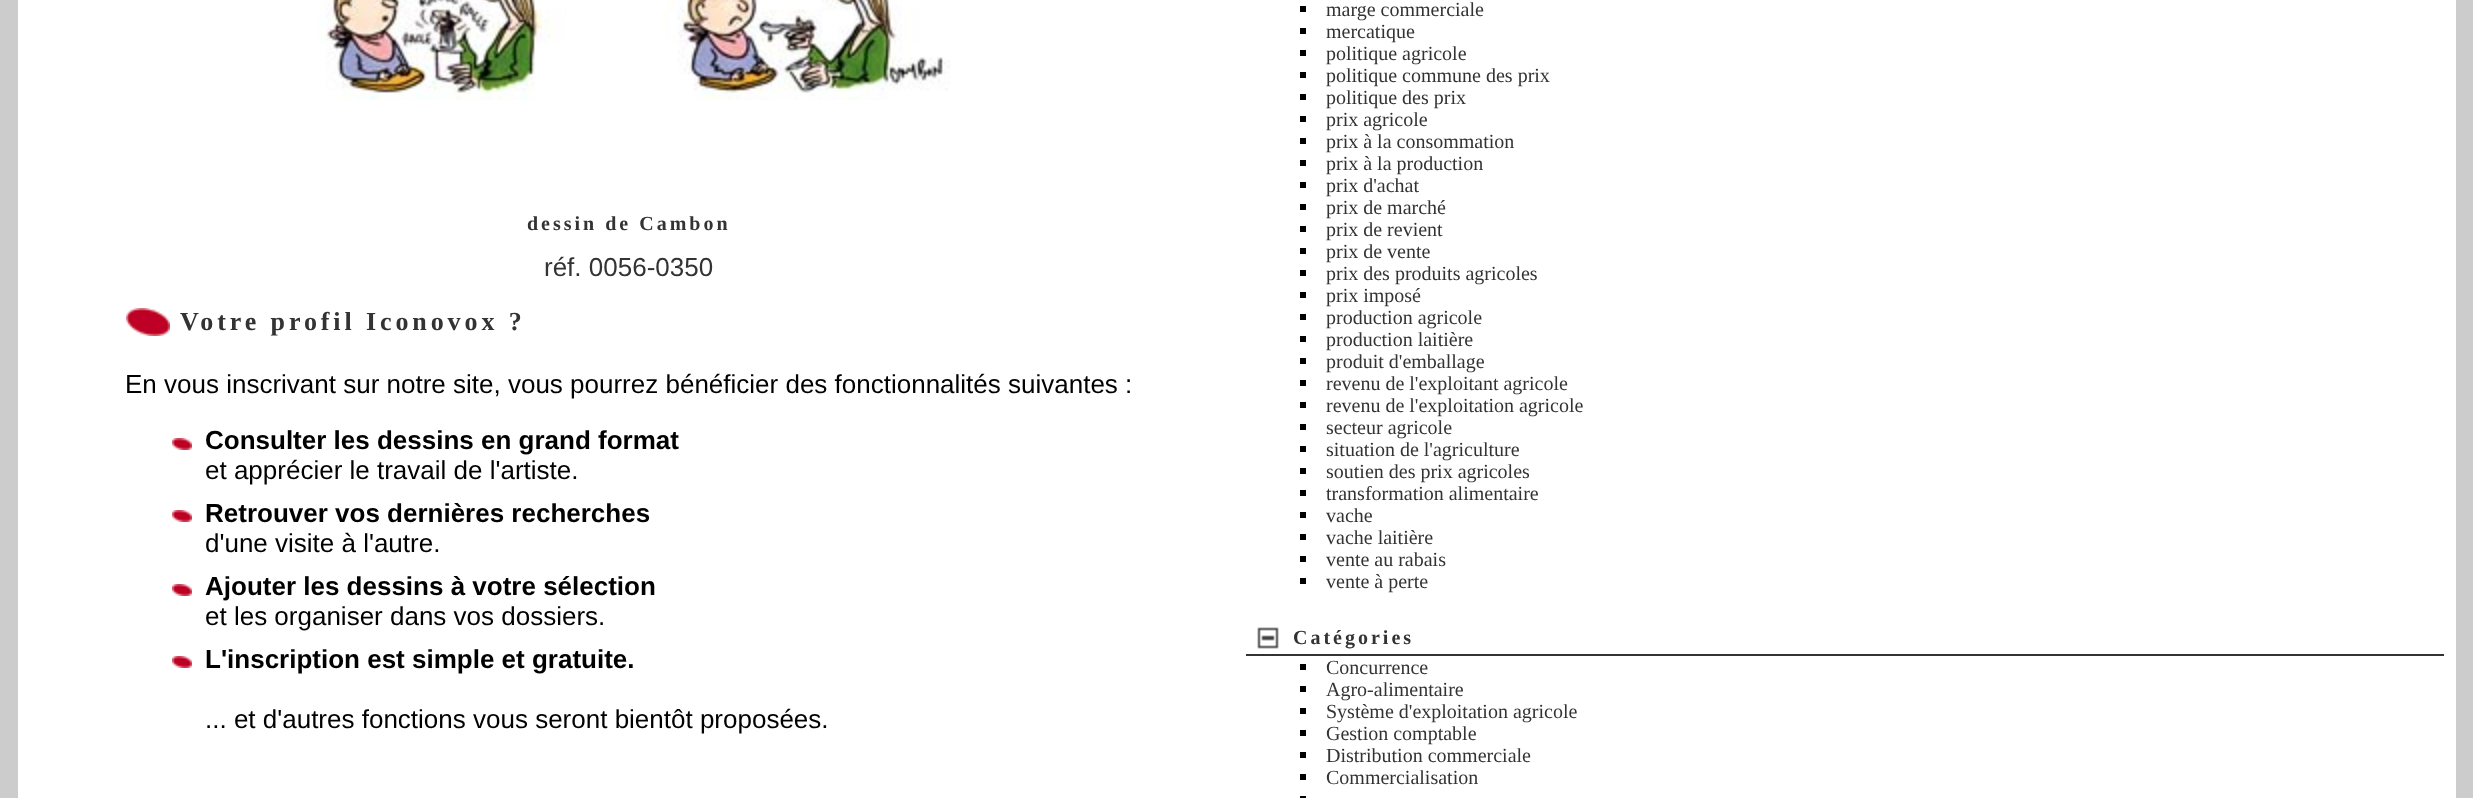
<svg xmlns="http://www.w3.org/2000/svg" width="2473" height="798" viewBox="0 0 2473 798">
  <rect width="100%" height="100%" fill="rgb(204,204,204)"/>
  <rect x="18" y="0" width="2438" height="798" fill="rgb(255,255,255)"/>
  <image x="317" y="0" width="633" height="100" href="pic1.png"/>
  <text x="527" y="230" font-family="Liberation Serif" font-size="20" font-weight="bold" letter-spacing="3" fill="rgb(51,51,51)">dessin de Cambon</text>
  <text x="544" y="276" font-family="Liberation Sans" font-size="26" fill="rgb(51,51,51)">réf. 0056-0350</text>
  <image x="126" y="308" width="44" height="28" href="pic2.png"/>
  <text x="180" y="330" font-family="Liberation Serif" font-size="26" font-weight="bold" letter-spacing="3.9" fill="rgb(51,51,51)">Votre profil Iconovox ?</text>
  <text x="125" y="393" font-family="Liberation Sans" font-size="26" fill="rgb(0,0,0)">En vous inscrivant sur notre site, vous pourrez bénéficier des fonctionnalités suivantes :</text>
  <image x="172" y="438" width="20" height="12" href="pic3.png"/>
  <text x="205" y="449" font-family="Liberation Sans" font-size="26" font-weight="bold" fill="rgb(0,0,0)">Consulter les dessins en grand format</text>
  <text x="205" y="479" font-family="Liberation Sans" font-size="26" fill="rgb(0,0,0)">et apprécier le travail de l'artiste.</text>
  <image x="172" y="510" width="20" height="12" href="pic3.png"/>
  <text x="205" y="522" font-family="Liberation Sans" font-size="26" font-weight="bold" fill="rgb(0,0,0)">Retrouver vos dernières recherches</text>
  <text x="205" y="552" font-family="Liberation Sans" font-size="26" fill="rgb(0,0,0)">d'une visite à l'autre.</text>
  <image x="172" y="584" width="20" height="12" href="pic3.png"/>
  <text x="205" y="595" font-family="Liberation Sans" font-size="26" font-weight="bold" fill="rgb(0,0,0)">Ajouter les dessins à votre sélection</text>
  <text x="205" y="625" font-family="Liberation Sans" font-size="26" fill="rgb(0,0,0)">et les organiser dans vos dossiers.</text>
  <image x="172" y="656" width="20" height="12" href="pic3.png"/>
  <text x="205" y="668" font-family="Liberation Sans" font-size="26" font-weight="bold" fill="rgb(0,0,0)">L'inscription est simple et gratuite.</text>
  <text x="205" y="728" font-family="Liberation Sans" font-size="26" fill="rgb(0,0,0)">... et d'autres fonctions vous seront bientôt proposées.</text>
  <rect x="1300" y="6" width="6" height="6" fill="rgb(0,0,0)"/>
  <text x="1326" y="16" font-family="Liberation Serif" font-size="20" fill="rgb(51,51,51)">marge commerciale</text>
  <rect x="1300" y="28" width="6" height="6" fill="rgb(0,0,0)"/>
  <text x="1326" y="38" font-family="Liberation Serif" font-size="20" fill="rgb(51,51,51)">mercatique</text>
  <rect x="1300" y="50" width="6" height="6" fill="rgb(0,0,0)"/>
  <text x="1326" y="60" font-family="Liberation Serif" font-size="20" fill="rgb(51,51,51)">politique agricole</text>
  <rect x="1300" y="72" width="6" height="6" fill="rgb(0,0,0)"/>
  <text x="1326" y="82" font-family="Liberation Serif" font-size="20" fill="rgb(51,51,51)">politique commune des prix</text>
  <rect x="1300" y="94" width="6" height="6" fill="rgb(0,0,0)"/>
  <text x="1326" y="104" font-family="Liberation Serif" font-size="20" fill="rgb(51,51,51)">politique des prix</text>
  <rect x="1300" y="116" width="6" height="6" fill="rgb(0,0,0)"/>
  <text x="1326" y="126" font-family="Liberation Serif" font-size="20" fill="rgb(51,51,51)">prix agricole</text>
  <rect x="1300" y="138" width="6" height="6" fill="rgb(0,0,0)"/>
  <text x="1326" y="148" font-family="Liberation Serif" font-size="20" fill="rgb(51,51,51)">prix à la consommation</text>
  <rect x="1300" y="160" width="6" height="6" fill="rgb(0,0,0)"/>
  <text x="1326" y="170" font-family="Liberation Serif" font-size="20" fill="rgb(51,51,51)">prix à la production</text>
  <rect x="1300" y="182" width="6" height="6" fill="rgb(0,0,0)"/>
  <text x="1326" y="192" font-family="Liberation Serif" font-size="20" fill="rgb(51,51,51)">prix d'achat</text>
  <rect x="1300" y="204" width="6" height="6" fill="rgb(0,0,0)"/>
  <text x="1326" y="214" font-family="Liberation Serif" font-size="20" fill="rgb(51,51,51)">prix de marché</text>
  <rect x="1300" y="226" width="6" height="6" fill="rgb(0,0,0)"/>
  <text x="1326" y="236" font-family="Liberation Serif" font-size="20" fill="rgb(51,51,51)">prix de revient</text>
  <rect x="1300" y="248" width="6" height="6" fill="rgb(0,0,0)"/>
  <text x="1326" y="258" font-family="Liberation Serif" font-size="20" fill="rgb(51,51,51)">prix de vente</text>
  <rect x="1300" y="270" width="6" height="6" fill="rgb(0,0,0)"/>
  <text x="1326" y="280" font-family="Liberation Serif" font-size="20" fill="rgb(51,51,51)">prix des produits agricoles</text>
  <rect x="1300" y="292" width="6" height="6" fill="rgb(0,0,0)"/>
  <text x="1326" y="302" font-family="Liberation Serif" font-size="20" fill="rgb(51,51,51)">prix imposé</text>
  <rect x="1300" y="314" width="6" height="6" fill="rgb(0,0,0)"/>
  <text x="1326" y="324" font-family="Liberation Serif" font-size="20" fill="rgb(51,51,51)">production agricole</text>
  <rect x="1300" y="336" width="6" height="6" fill="rgb(0,0,0)"/>
  <text x="1326" y="346" font-family="Liberation Serif" font-size="20" fill="rgb(51,51,51)">production laitière</text>
  <rect x="1300" y="358" width="6" height="6" fill="rgb(0,0,0)"/>
  <text x="1326" y="368" font-family="Liberation Serif" font-size="20" fill="rgb(51,51,51)">produit d'emballage</text>
  <rect x="1300" y="380" width="6" height="6" fill="rgb(0,0,0)"/>
  <text x="1326" y="390" font-family="Liberation Serif" font-size="20" fill="rgb(51,51,51)">revenu de l'exploitant agricole</text>
  <rect x="1300" y="402" width="6" height="6" fill="rgb(0,0,0)"/>
  <text x="1326" y="412" font-family="Liberation Serif" font-size="20" fill="rgb(51,51,51)">revenu de l'exploitation agricole</text>
  <rect x="1300" y="424" width="6" height="6" fill="rgb(0,0,0)"/>
  <text x="1326" y="434" font-family="Liberation Serif" font-size="20" fill="rgb(51,51,51)">secteur agricole</text>
  <rect x="1300" y="446" width="6" height="6" fill="rgb(0,0,0)"/>
  <text x="1326" y="456" font-family="Liberation Serif" font-size="20" fill="rgb(51,51,51)">situation de l'agriculture</text>
  <rect x="1300" y="468" width="6" height="6" fill="rgb(0,0,0)"/>
  <text x="1326" y="478" font-family="Liberation Serif" font-size="20" fill="rgb(51,51,51)">soutien des prix agricoles</text>
  <rect x="1300" y="490" width="6" height="6" fill="rgb(0,0,0)"/>
  <text x="1326" y="500" font-family="Liberation Serif" font-size="20" fill="rgb(51,51,51)">transformation alimentaire</text>
  <rect x="1300" y="512" width="6" height="6" fill="rgb(0,0,0)"/>
  <text x="1326" y="522" font-family="Liberation Serif" font-size="20" fill="rgb(51,51,51)">vache</text>
  <rect x="1300" y="534" width="6" height="6" fill="rgb(0,0,0)"/>
  <text x="1326" y="544" font-family="Liberation Serif" font-size="20" fill="rgb(51,51,51)">vache laitière</text>
  <rect x="1300" y="556" width="6" height="6" fill="rgb(0,0,0)"/>
  <text x="1326" y="566" font-family="Liberation Serif" font-size="20" fill="rgb(51,51,51)">vente au rabais</text>
  <rect x="1300" y="578" width="6" height="6" fill="rgb(0,0,0)"/>
  <text x="1326" y="588" font-family="Liberation Serif" font-size="20" fill="rgb(51,51,51)">vente à perte</text>
  <rect x="1246" y="654" width="1198" height="2" fill="rgb(51,51,51)"/>
  <image x="1257" y="627" width="22" height="22" href="pic4.png"/>
  <text x="1293" y="644" font-family="Liberation Serif" font-size="20" font-weight="bold" letter-spacing="3" fill="rgb(51,51,51)">Catégories</text>
  <rect x="1300" y="664" width="6" height="6" fill="rgb(0,0,0)"/>
  <text x="1326" y="674" font-family="Liberation Serif" font-size="20" fill="rgb(51,51,51)">Concurrence</text>
  <rect x="1300" y="686" width="6" height="6" fill="rgb(0,0,0)"/>
  <text x="1326" y="696" font-family="Liberation Serif" font-size="20" fill="rgb(51,51,51)">Agro-alimentaire</text>
  <rect x="1300" y="708" width="6" height="6" fill="rgb(0,0,0)"/>
  <text x="1326" y="718" font-family="Liberation Serif" font-size="20" fill="rgb(51,51,51)">Système d'exploitation agricole</text>
  <rect x="1300" y="730" width="6" height="6" fill="rgb(0,0,0)"/>
  <text x="1326" y="740" font-family="Liberation Serif" font-size="20" fill="rgb(51,51,51)">Gestion comptable</text>
  <rect x="1300" y="752" width="6" height="6" fill="rgb(0,0,0)"/>
  <text x="1326" y="762" font-family="Liberation Serif" font-size="20" fill="rgb(51,51,51)">Distribution commerciale</text>
  <rect x="1300" y="774" width="6" height="6" fill="rgb(0,0,0)"/>
  <text x="1326" y="784" font-family="Liberation Serif" font-size="20" fill="rgb(51,51,51)">Commercialisation</text>
  <rect x="1300" y="796" width="6" height="2" fill="rgb(0,0,0)"/>
</svg>
